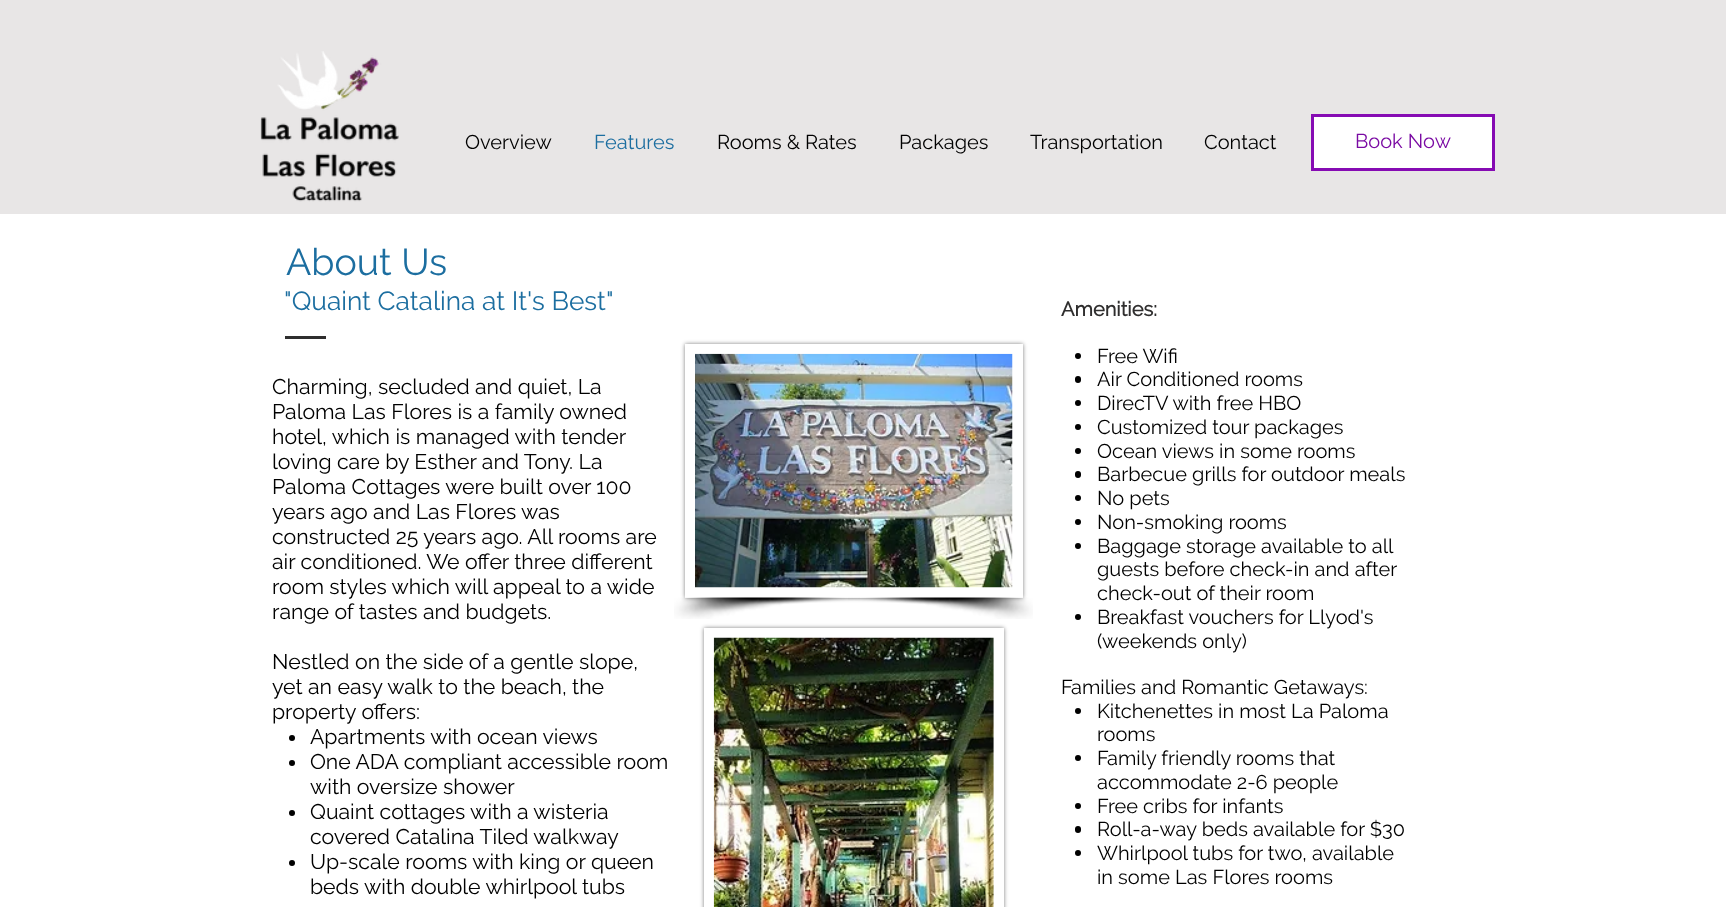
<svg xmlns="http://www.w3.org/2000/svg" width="1726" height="907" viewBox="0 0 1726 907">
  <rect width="100%" height="100%" fill="rgb(255,255,255)"/>
  <rect x="0" y="0" width="1726" height="214" fill="rgb(232,230,230)"/>
  <image x="260" y="51" width="139" height="151" href="pic1.png"/>
  <text x="465" y="149" font-family="Raleway" font-size="20" fill="rgb(0,0,0)">Overview</text>
  <text x="594" y="149" font-family="Raleway" font-size="20" fill="rgb(28,110,160)">Features</text>
  <g font-family="Raleway" font-size="20" fill="rgb(0,0,0)">
    <text x="717" y="149">Rooms &amp; Rates</text>
    <text x="899" y="149">Packages</text>
    <text x="1030" y="149">Transportation</text>
    <text x="1204" y="149">Contact</text>
  </g>
  <rect x="1312.5" y="115.5" width="181" height="54" fill="rgb(255,255,255)" stroke="rgb(134,11,179)" stroke-width="3"/>
  <text x="1355" y="148" font-family="'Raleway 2'" font-size="20" fill="rgb(122,10,163)">Book Now</text>
  <text x="286" y="275" font-family="Raleway" font-size="37.5" fill="rgb(28,110,160)">About Us</text>
  <text x="284" y="310" font-family="'Raleway 2'" font-size="26.25" fill="rgb(28,110,160)">"Quaint Catalina at It's Best"</text>
  <text x="1061" y="316" font-family="Raleway" font-size="20" font-weight="bold" fill="rgb(47,46,46)">Amenities:</text>
  <circle cx="1078" cy="356" r="3" fill="rgb(0,0,0)"/>
  <text x="1097" y="363" font-family="'Raleway 2'" font-size="20" fill="rgb(0,0,0)">Free Wifi</text>
  <rect x="1075" y="376" width="6" height="7" rx="3" fill="rgb(0,0,0)"/>
  <text x="1097" y="386" font-family="'Raleway 2'" font-size="20" fill="rgb(0,0,0)">Air Conditioned rooms</text>
  <circle cx="1078" cy="403" r="3" fill="rgb(0,0,0)"/>
  <text x="1097" y="410" font-family="'Raleway 2'" font-size="20" fill="rgb(0,0,0)">DirecTV with free HBO</text>
  <circle cx="1078" cy="427" r="3" fill="rgb(0,0,0)"/>
  <text x="1097" y="434" font-family="'Raleway 2'" font-size="20" fill="rgb(0,0,0)">Customized tour packages</text>
  <circle cx="1078" cy="451" r="3" fill="rgb(0,0,0)"/>
  <text x="1097" y="458" font-family="'Raleway 2'" font-size="20" fill="rgb(0,0,0)">Ocean views in some rooms</text>
  <rect x="1075" y="471" width="6" height="7" rx="3" fill="rgb(0,0,0)"/>
  <text x="1097" y="481" font-family="'Raleway 2'" font-size="20" fill="rgb(0,0,0)">Barbecue grills for outdoor meals</text>
  <circle cx="1078" cy="498" r="3" fill="rgb(0,0,0)"/>
  <text x="1097" y="505" font-family="'Raleway 2'" font-size="20" fill="rgb(0,0,0)">No pets</text>
  <circle cx="1078" cy="522" r="3" fill="rgb(0,0,0)"/>
  <text x="1097" y="529" font-family="'Raleway 2'" font-size="20" fill="rgb(0,0,0)">Non-smoking rooms</text>
  <circle cx="1078" cy="546" r="3" fill="rgb(0,0,0)"/>
  <g font-family="'Raleway 2'" font-size="20" fill="rgb(0,0,0)">
    <text>
      <tspan x="1097" y="553">Baggage storage available to all</tspan>
      <tspan x="1097" y="576">guests before check-in and after</tspan>
      <tspan x="1097" y="600">check-out of their room</tspan>
    </text>
  </g>
  <circle cx="1078" cy="617" r="3" fill="rgb(0,0,0)"/>
  <g font-family="'Raleway 2'" font-size="20" fill="rgb(0,0,0)">
    <text>
      <tspan x="1097" y="624">Breakfast vouchers for Llyod's</tspan>
      <tspan x="1097" y="648">(weekends only)</tspan>
    </text>
    <text x="1061" y="694">Families and Romantic Getaways:</text>
  </g>
  <circle cx="1078" cy="711" r="3" fill="rgb(0,0,0)"/>
  <g font-family="'Raleway 2'" font-size="20" fill="rgb(0,0,0)">
    <text>
      <tspan x="1097" y="718">Kitchenettes in most La Paloma</tspan>
      <tspan x="1097" y="741">rooms</tspan>
    </text>
  </g>
  <circle cx="1078" cy="758" r="3" fill="rgb(0,0,0)"/>
  <g font-family="'Raleway 2'" font-size="20" fill="rgb(0,0,0)">
    <text>
      <tspan x="1097" y="765">Family friendly rooms that</tspan>
      <tspan x="1097" y="789">accommodate 2-6 people</tspan>
    </text>
  </g>
  <circle cx="1078" cy="806" r="3" fill="rgb(0,0,0)"/>
  <text x="1097" y="813" font-family="'Raleway 2'" font-size="20" fill="rgb(0,0,0)">Free cribs for infants</text>
  <rect x="1075" y="826" width="6" height="7" rx="3" fill="rgb(0,0,0)"/>
  <text x="1097" y="836" font-family="'Raleway 2'" font-size="20" fill="rgb(0,0,0)">Roll-a-way beds available for $30</text>
  <circle cx="1078" cy="853" r="3" fill="rgb(0,0,0)"/>
  <g font-family="'Raleway 2'" font-size="20" fill="rgb(0,0,0)">
    <text>
      <tspan x="1097" y="860">Whirlpool tubs for two, available</tspan>
      <tspan x="1097" y="884">in some Las Flores rooms</tspan>
    </text>
  </g>
  <rect x="285" y="336" width="41" height="3" fill="rgb(47,46,46)"/>
  <rect x="685" y="344" width="338" height="254" fill="rgba(0,0,0,0.5)" filter="blur(2px)"/>
  <rect x="685" y="344" width="338" height="254" fill="rgb(255,255,255)"/>
  <image x="695" y="353" width="318" height="235" href="pic2.png"/>
  <image x="674" y="597" width="186" height="22" href="pic3.png"/>
  <image x="848" y="597" width="185" height="22" href="pic4.png"/>
  <g font-family="Raleway" font-size="21.25" fill="rgb(0,0,0)">
    <text>
      <tspan x="272" y="394">Charming, secluded and quiet, La</tspan>
      <tspan x="272" y="419">Paloma Las Flores is a family owned</tspan>
      <tspan x="272" y="444">hotel, which is managed with tender</tspan>
      <tspan x="272" y="469">loving care by Esther and Tony. La</tspan>
      <tspan x="272" y="494">Paloma Cottages were built over 100</tspan>
      <tspan x="272" y="519">years ago and Las Flores was</tspan>
      <tspan x="272" y="544">constructed 25 years ago. All rooms are</tspan>
      <tspan x="272" y="569">air conditioned. We offer three different</tspan>
      <tspan x="272" y="594">room styles which will appeal to a wide</tspan>
      <tspan x="272" y="619">range of tastes and budgets.</tspan>
    </text>
    <text>
      <tspan x="272" y="669">Nestled on the side of a gentle slope,</tspan>
      <tspan x="272" y="694">yet an easy walk to the beach, the</tspan>
      <tspan x="272" y="719">property offers:</tspan>
    </text>
  </g>
  <circle cx="292" cy="738" r="3" fill="rgb(0,0,0)"/>
  <text x="310" y="744" font-family="Raleway" font-size="21.25" fill="rgb(0,0,0)">Apartments with ocean views</text>
  <circle cx="292" cy="763" r="3" fill="rgb(0,0,0)"/>
  <g font-family="Raleway" font-size="21.25" fill="rgb(0,0,0)">
    <text>
      <tspan x="310" y="769">One ADA compliant accessible room</tspan>
      <tspan x="310" y="794">with oversize shower</tspan>
    </text>
  </g>
  <circle cx="292" cy="813" r="3" fill="rgb(0,0,0)"/>
  <g font-family="Raleway" font-size="21.25" fill="rgb(0,0,0)">
    <text>
      <tspan x="310" y="819">Quaint cottages with a wisteria</tspan>
      <tspan x="310" y="844">covered Catalina Tiled walkway</tspan>
    </text>
  </g>
  <circle cx="292" cy="863" r="3" fill="rgb(0,0,0)"/>
  <g font-family="Raleway" font-size="21.25" fill="rgb(0,0,0)">
    <text>
      <tspan x="310" y="869">Up-scale rooms with king or queen</tspan>
      <tspan x="310" y="894">beds with double whirlpool tubs</tspan>
    </text>
  </g>
  <rect x="704" y="628" width="300" height="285" fill="rgba(0,0,0,0.5)" filter="blur(2px)"/>
  <rect x="704" y="628" width="300" height="279" fill="rgb(255,255,255)"/>
  <image x="713" y="637" width="281" height="270" href="pic5.png"/>
</svg>
